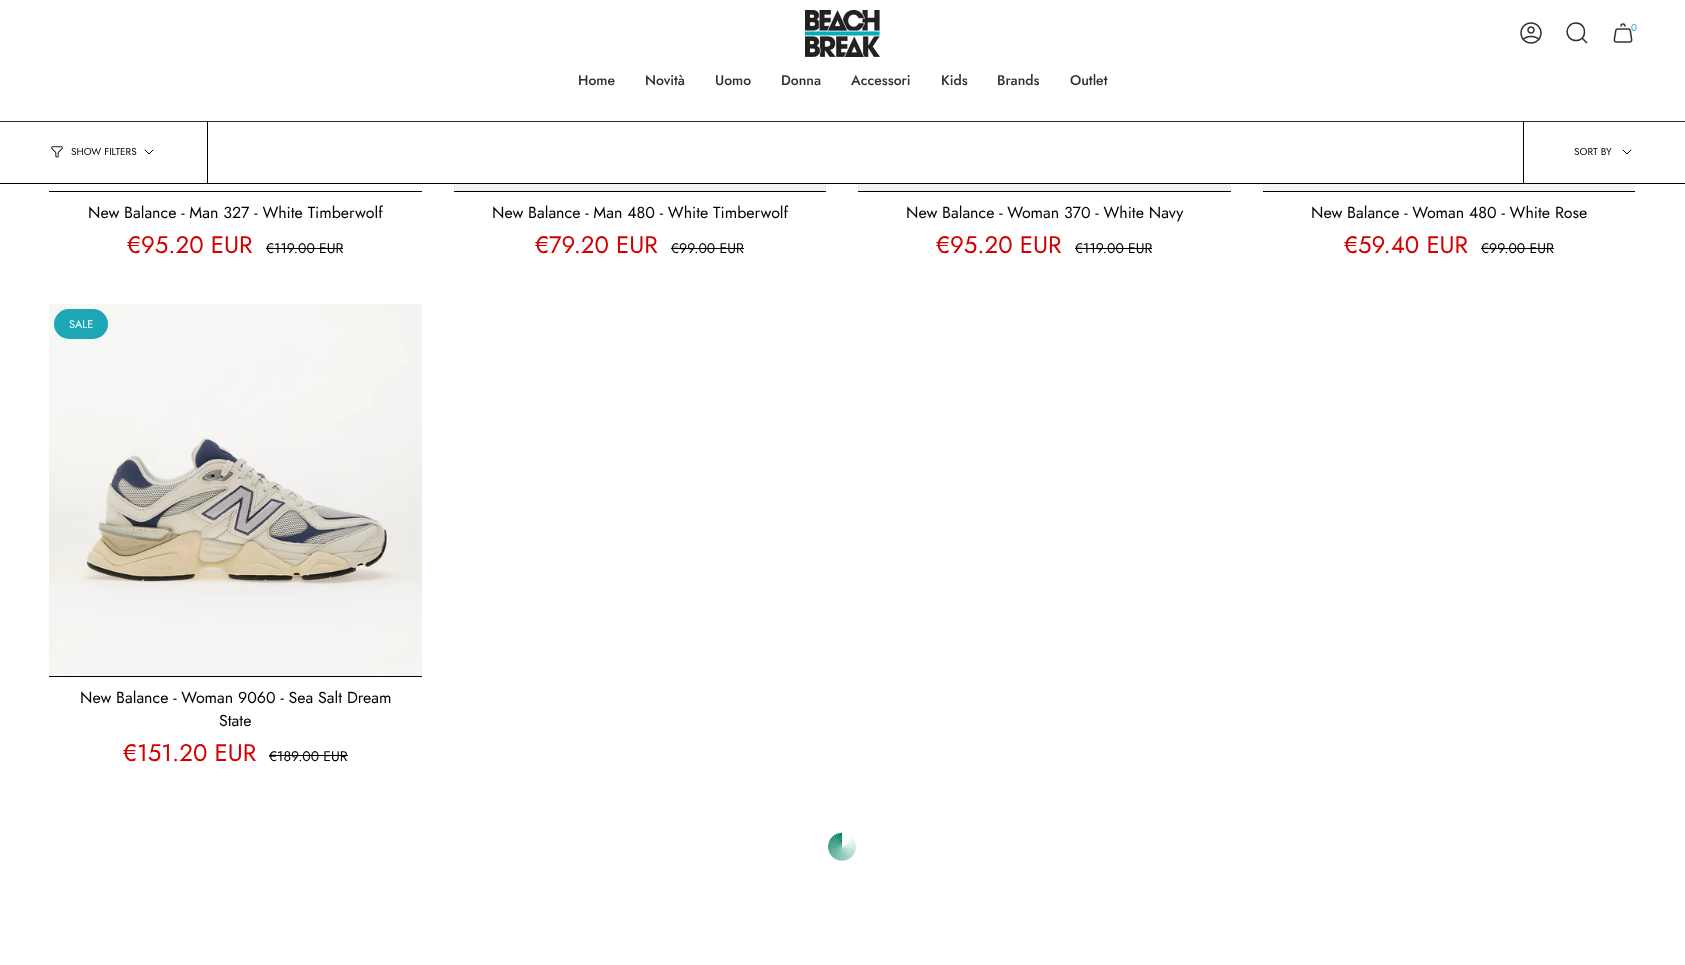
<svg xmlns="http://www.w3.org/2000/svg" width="1685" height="965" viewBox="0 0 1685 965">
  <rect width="100%" height="100%" fill="rgb(255,255,255)"/>
  <image x="805" y="10" width="75" height="47" href="pic1.png"/>
  <image x="1520" y="22" width="22" height="22" href="pic2.png"/>
  <path d="M1576 23C1587.5 23 1587.5 41 1575.5 40.5C1564 40 1564.5 23 1576 23ZM1582 38L1587 43" fill="none" stroke="rgb(46,46,46)" stroke-width="1.5"/>
  <image x="1613" y="23" width="20" height="20" href="pic3.png"/>
  <text x="1631" y="31" font-family="Jost" font-size="10" fill="rgb(29,167,182)">0</text>
  <g font-family="Jost" font-size="14" font-weight="500" fill="rgb(46,46,46)">
    <text x="578" y="85">Home</text>
    <text x="645" y="85">Novità</text>
    <text x="715" y="85">Uomo</text>
    <text x="781" y="85">Donna</text>
    <text x="851" y="85">Accessori</text>
    <text x="941" y="85">Kids</text>
    <text x="997" y="85">Brands</text>
    <text x="1070" y="85">Outlet</text>
  </g>
  <rect x="207" y="121" width="1" height="62" fill="rgb(0,0,0)"/>
  <rect x="1523" y="121" width="1" height="62" fill="rgb(0,0,0)"/>
  <rect x="0" y="121" width="1685" height="1" fill="rgb(46,46,46)"/>
  <rect x="0" y="183" width="1685" height="1" fill="rgb(0,0,0)"/>
  <image x="51" y="146" width="12" height="12" href="pic4.png"/>
  <text x="71" y="155" font-family="Jost" font-size="10" fill="rgb(0,0,0)">SHOW FILTERS</text>
  <path d="M145 150L149 154L153 150" fill="none" stroke="rgb(0,0,0)" stroke-linecap="round" stroke-linejoin="round"/>
  <text x="1574" y="155" font-family="Jost" font-size="10" fill="rgb(0,0,0)">SORT BY</text>
  <path d="M1623 150L1627 154L1631 150" fill="none" stroke="rgb(0,0,0)" stroke-linecap="round" stroke-linejoin="round"/>
  <rect x="49" y="191" width="373" height="1" fill="rgb(0,0,0)"/>
  <text x="88" y="218" font-family="Jost" font-size="16" fill="rgb(0,0,0)">New Balance - Man 327 - White Timberwolf</text>
  <text x="127" y="253" font-family="Jost" font-size="24" fill="rgb(210,0,0)">€95.20 EUR</text>
  <text x="266" y="253" font-family="Jost" font-size="14" fill="rgb(0,0,0)">€119.00 EUR</text>
  <rect x="266" y="248" width="77" height="1" fill="rgb(0,0,0)"/>
  <rect x="454" y="191" width="372" height="1" fill="rgb(0,0,0)"/>
  <image x="454" y="184" width="372" height="7" href="pic5.png"/>
  <text x="492" y="218" font-family="Jost" font-size="16" fill="rgb(0,0,0)">New Balance - Man 480 - White Timberwolf</text>
  <text x="535" y="253" font-family="Jost" font-size="24" fill="rgb(210,0,0)">€79.20 EUR</text>
  <text x="671" y="253" font-family="Jost" font-size="14" fill="rgb(0,0,0)">€99.00 EUR</text>
  <rect x="671" y="248" width="73" height="1" fill="rgb(0,0,0)"/>
  <rect x="858" y="191" width="373" height="1" fill="rgb(0,0,0)"/>
  <image x="858" y="184" width="373" height="7" href="pic6.png"/>
  <text x="906" y="218" font-family="Jost" font-size="16" fill="rgb(0,0,0)">New Balance - Woman 370 - White Navy</text>
  <text x="936" y="253" font-family="Jost" font-size="24" fill="rgb(210,0,0)">€95.20 EUR</text>
  <text x="1075" y="253" font-family="Jost" font-size="14" fill="rgb(0,0,0)">€119.00 EUR</text>
  <rect x="1075" y="248" width="77" height="1" fill="rgb(0,0,0)"/>
  <rect x="1263" y="191" width="372" height="1" fill="rgb(0,0,0)"/>
  <image x="1263" y="184" width="372" height="7" href="pic7.png"/>
  <text x="1311" y="218" font-family="Jost" font-size="16" fill="rgb(0,0,0)">New Balance - Woman 480 - White Rose</text>
  <text x="1344" y="253" font-family="Jost" font-size="24" fill="rgb(210,0,0)">€59.40 EUR</text>
  <text x="1481" y="253" font-family="Jost" font-size="14" fill="rgb(0,0,0)">€99.00 EUR</text>
  <rect x="1481" y="248" width="73" height="1" fill="rgb(0,0,0)"/>
  <rect x="49" y="676" width="373" height="1" fill="rgb(0,0,0)"/>
  <image x="49" y="304" width="373" height="372" href="pic8.png"/>
  <rect x="54" y="309" width="54" height="30" rx="15" fill="rgb(29,167,182)"/>
  <text x="69" y="328" font-family="Jost" font-size="11" fill="rgb(255,255,255)">SALE</text>
  <g font-family="Jost" font-size="16" fill="rgb(0,0,0)">
    <text x="80" y="703">New Balance - Woman 9060 - Sea Salt Dream</text>
    <text x="219" y="726">State</text>
  </g>
  <text x="123" y="761" font-family="Jost" font-size="24" fill="rgb(210,0,0)">€151.20 EUR</text>
  <text x="269" y="761" font-family="Jost" font-size="14" fill="rgb(0,0,0)">€189.00 EUR</text>
  <rect x="269" y="755" width="79" height="1" fill="rgb(0,0,0)"/>
  <image x="828" y="832" width="28" height="29" href="pic9.png"/>
</svg>
